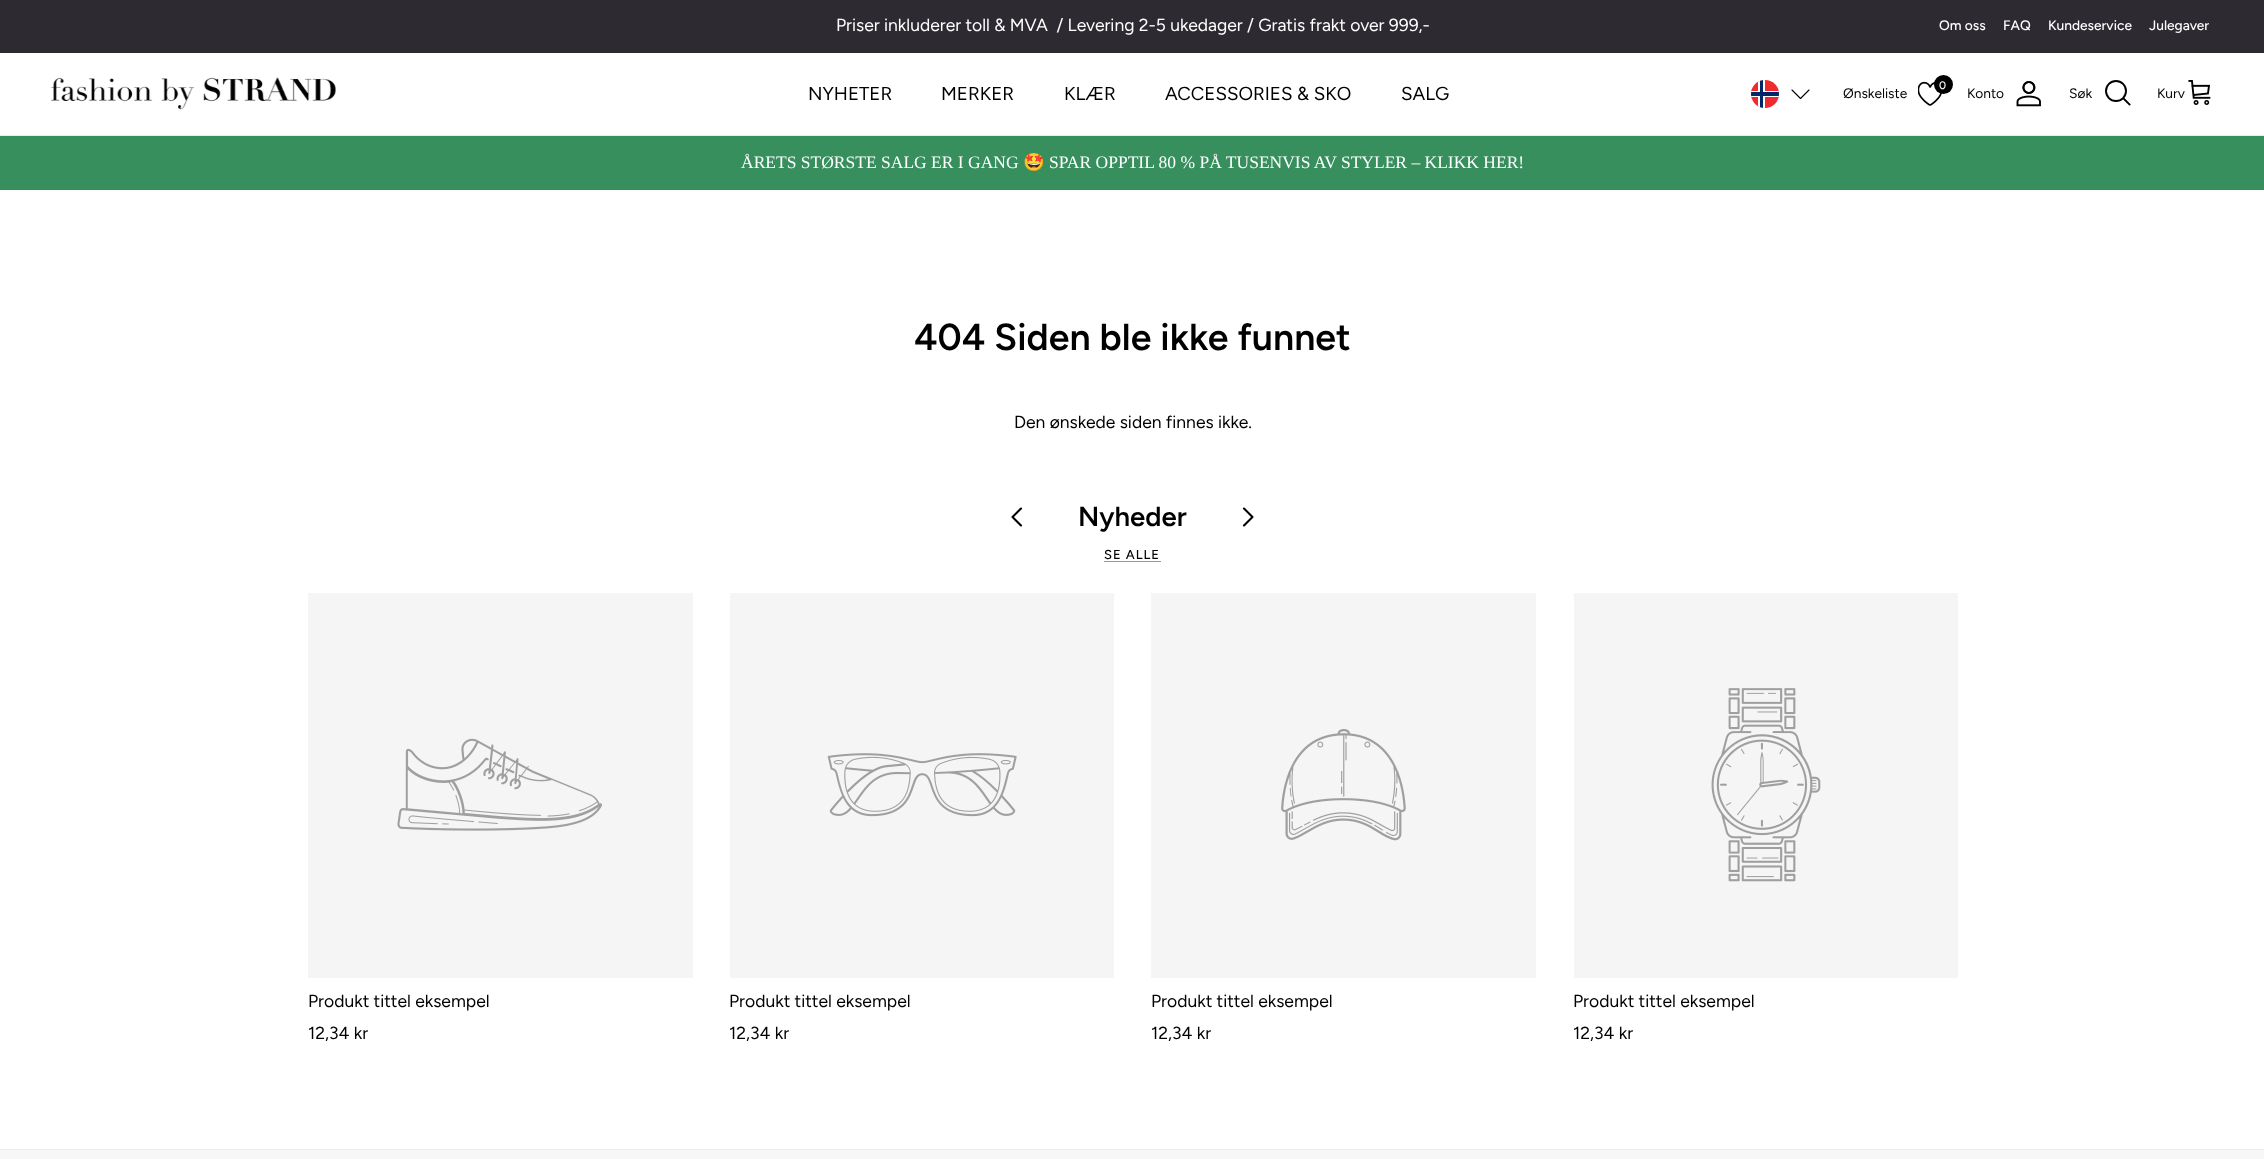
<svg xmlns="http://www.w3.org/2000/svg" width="2264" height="1159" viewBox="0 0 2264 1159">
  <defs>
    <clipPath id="clip1"><rect x="1751" y="80" width="28" height="28" rx="14"/></clipPath>
  </defs>
  <rect width="100%" height="100%" fill="rgb(255,255,255)"/>
  <rect x="0" y="0" width="2264" height="53" fill="rgb(45,43,49)"/>
  <text x="836" y="31" font-family="Figtree" font-size="17.5" fill="rgb(255,255,255)" xml:space="preserve">Priser inkluderer toll &amp; MVA  / Levering 2-5 ukedager / Gratis frakt over 999,-</text>
  <g font-family="Figtree" font-size="13.75" font-weight="500" fill="rgb(255,255,255)">
    <text x="1939" y="30">Om oss</text>
    <text x="2003" y="30">FAQ</text>
    <text x="2048" y="30">Kundeservice</text>
    <text x="2149" y="30">Julegaver</text>
  </g>
  <rect x="0" y="135" width="2264" height="1" fill="rgb(236,237,237)"/>
  <image x="51" y="77" width="285" height="33" href="pic1.png"/>
  <g font-family="Figtree" font-size="18.75" fill="rgb(0,0,0)">
    <text x="808" y="100">NYHETER</text>
    <text x="941" y="100">MERKER</text>
    <text x="1064" y="100">KLÆR</text>
    <text x="1165" y="100">ACCESSORIES &amp; SKO</text>
    <text x="1401" y="100">SALG</text>
  </g>
  <circle cx="1765" cy="94" r="14" fill="rgb(239,43,45)"/>
  <g clip-path="url(#clip1)">
    <rect x="1758" y="80" width="7" height="28" fill="rgb(255,255,255)"/>
    <rect x="1751" y="91" width="28" height="6" fill="rgb(255,255,255)"/>
    <rect x="1760" y="80" width="3" height="28" fill="rgb(0,40,104)"/>
    <rect x="1751" y="92" width="28" height="4" fill="rgb(0,40,104)"/>
  </g>
  <path d="M1792 90L1800.5 98.5L1809 90" fill="none" stroke="rgb(0,0,0)" stroke-width="1.1" stroke-linecap="round" stroke-linejoin="round"/>
  <image x="1918" y="81" width="24" height="25" href="pic2.png"/>
  <circle cx="1943.5" cy="84.5" r="9.5" fill="rgb(0,0,0)"/>
  <text x="1939" y="89" font-family="Figtree" font-size="11" font-weight="500" fill="rgb(255,255,255)">0</text>
  <g font-family="Figtree" font-size="13.75" fill="rgb(0,0,0)">
    <text x="1843" y="98">Ønskeliste</text>
    <text x="1967" y="98">Konto</text>
  </g>
  <image x="2016" y="81" width="25" height="26" href="pic3.png"/>
  <text x="2069" y="98" font-family="Figtree" font-size="13.75" fill="rgb(0,0,0)">Søk</text>
  <circle cx="2116" cy="91" r="10" fill="none" stroke="rgb(0,0,0)" stroke-width="1.9"/>
  <path d="M2123.5 98.5L2129.5 104.5" fill="none" stroke="rgb(0,0,0)" stroke-width="1.9" stroke-linecap="square"/>
  <text x="2157" y="98" font-family="Figtree" font-size="13.75" fill="rgb(0,0,0)">Kurv</text>
  <image x="2188" y="80" width="23" height="25" href="pic4.png"/>
  <rect x="0" y="136" width="2264" height="54" fill="rgb(54,143,93)"/>
  <text x="741" y="168" font-family="Liberation Serif" font-size="17.5" fill="rgb(255,255,255)">ÅRETS STØRSTE SALG ER I GANG</text>
  <text x="1023" y="168" font-family="Noto Color Emoji" font-size="17.5" fill="rgb(255,255,255)">🤩</text>
  <text x="1049" y="168" font-family="Liberation Serif" font-size="17.5" fill="rgb(255,255,255)">SPAR OPPTIL 80 % PÅ TUSENVIS AV STYLER – KLIKK HER!</text>
  <text x="914" y="350" font-family="Figtree" font-size="37.5" font-weight="600" fill="rgb(0,0,0)">404 Siden ble ikke funnet</text>
  <text x="1014" y="428" font-family="Figtree" font-size="17.5" fill="rgb(0,0,0)">Den ønskede siden finnes ikke.</text>
  <path d="M1021 525.5L1012.5 517L1021 508.5" fill="none" stroke="rgb(0,0,0)" stroke-width="2.1" stroke-linecap="round" stroke-linejoin="round"/>
  <text x="1078" y="526" font-family="Figtree" font-size="27.5" font-weight="600" fill="rgb(0,0,0)">Nyheder</text>
  <path d="M1244 525.5L1252.5 517L1244 508.5" fill="none" stroke="rgb(0,0,0)" stroke-width="2.1" stroke-linecap="round" stroke-linejoin="round"/>
  <text x="1104" y="559" font-family="Figtree" font-size="13" font-weight="500" letter-spacing="1" fill="rgb(0,0,0)">SE ALLE</text>
  <rect x="1104" y="561" width="57" height="1" fill="rgb(153,153,153)"/>
  <rect x="308" y="593" width="385" height="385" fill="rgb(245,245,245)"/>
  <image x="397" y="738" width="205" height="93" href="pic5.png"/>
  <g font-family="Figtree" font-size="17.5" fill="rgb(0,0,0)">
    <text>
      <tspan x="308" y="1007">Produkt tittel eksempel</tspan>
      <tspan x="308" y="1039">12,34 kr</tspan>
    </text>
  </g>
  <rect x="730" y="593" width="384" height="385" fill="rgb(245,245,245)"/>
  <image x="827" y="753" width="190" height="64" href="pic6.png"/>
  <g font-family="Figtree" font-size="17.5" fill="rgb(0,0,0)">
    <text>
      <tspan x="729" y="1007">Produkt tittel eksempel</tspan>
      <tspan x="729" y="1039">12,34 kr</tspan>
    </text>
  </g>
  <rect x="1151" y="593" width="385" height="385" fill="rgb(245,245,245)"/>
  <image x="1281" y="729" width="125" height="112" href="pic7.png"/>
  <g font-family="Figtree" font-size="17.5" fill="rgb(0,0,0)">
    <text>
      <tspan x="1151" y="1007">Produkt tittel eksempel</tspan>
      <tspan x="1151" y="1039">12,34 kr</tspan>
    </text>
  </g>
  <rect x="1574" y="593" width="384" height="385" fill="rgb(245,245,245)"/>
  <image x="1711" y="688" width="110" height="194" href="pic8.png"/>
  <g font-family="Figtree" font-size="17.5" fill="rgb(0,0,0)">
    <text>
      <tspan x="1573" y="1007">Produkt tittel eksempel</tspan>
      <tspan x="1573" y="1039">12,34 kr</tspan>
    </text>
  </g>
  <rect x="0" y="1150" width="2264" height="9" fill="rgb(247,247,247)"/>
  <rect x="0" y="1149" width="2264" height="1" fill="rgb(236,237,237)"/>
</svg>
